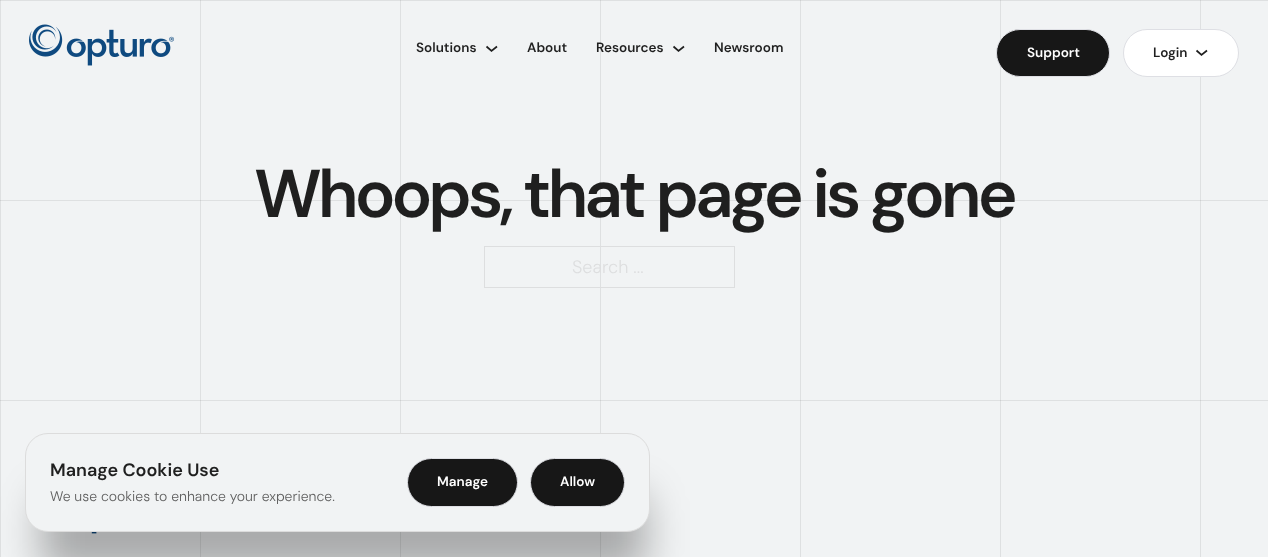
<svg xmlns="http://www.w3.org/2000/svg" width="1268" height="557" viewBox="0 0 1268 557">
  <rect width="100%" height="100%" fill="rgb(241,243,244)"/>
  <rect x="1200" y="0" width="1" height="557" fill="rgb(222,224,225)"/>
  <rect x="1000" y="0" width="1" height="557" fill="rgb(222,224,225)"/>
  <rect x="800" y="0" width="1" height="557" fill="rgb(222,224,225)"/>
  <rect x="600" y="0" width="1" height="557" fill="rgb(222,224,225)"/>
  <rect x="400" y="0" width="1" height="557" fill="rgb(222,224,225)"/>
  <rect x="200" y="0" width="1" height="557" fill="rgb(222,224,225)"/>
  <rect x="0" y="0" width="1" height="557" fill="rgb(222,224,225)"/>
  <rect x="0" y="0" width="1268" height="1" fill="rgb(222,224,225)"/>
  <rect x="1200" y="0" width="1" height="1" fill="rgb(205,207,208)"/>
  <rect x="1000" y="0" width="1" height="1" fill="rgb(205,207,208)"/>
  <rect x="800" y="0" width="1" height="1" fill="rgb(205,207,208)"/>
  <rect x="600" y="0" width="1" height="1" fill="rgb(205,207,208)"/>
  <rect x="400" y="0" width="1" height="1" fill="rgb(205,207,208)"/>
  <rect x="200" y="0" width="1" height="1" fill="rgb(205,207,208)"/>
  <rect x="0" y="0" width="1" height="1" fill="rgb(205,207,208)"/>
  <rect x="0" y="200" width="1268" height="1" fill="rgb(222,224,225)"/>
  <rect x="1200" y="200" width="1" height="1" fill="rgb(205,207,208)"/>
  <rect x="1000" y="200" width="1" height="1" fill="rgb(205,207,208)"/>
  <rect x="800" y="200" width="1" height="1" fill="rgb(205,207,208)"/>
  <rect x="600" y="200" width="1" height="1" fill="rgb(205,207,208)"/>
  <rect x="400" y="200" width="1" height="1" fill="rgb(205,207,208)"/>
  <rect x="200" y="200" width="1" height="1" fill="rgb(205,207,208)"/>
  <rect x="0" y="200" width="1" height="1" fill="rgb(205,207,208)"/>
  <rect x="0" y="400" width="1268" height="1" fill="rgb(222,224,225)"/>
  <rect x="1200" y="400" width="1" height="1" fill="rgb(205,207,208)"/>
  <rect x="1000" y="400" width="1" height="1" fill="rgb(205,207,208)"/>
  <rect x="800" y="400" width="1" height="1" fill="rgb(205,207,208)"/>
  <rect x="600" y="400" width="1" height="1" fill="rgb(205,207,208)"/>
  <rect x="400" y="400" width="1" height="1" fill="rgb(205,207,208)"/>
  <rect x="200" y="400" width="1" height="1" fill="rgb(205,207,208)"/>
  <rect x="0" y="400" width="1" height="1" fill="rgb(205,207,208)"/>
  <image x="29" y="24" width="145" height="42" href="pic1.png"/>
  <text x="416" y="52" font-family="DM Sans" font-size="13.5" font-weight="600" fill="rgb(31,31,31)">Solutions</text>
  <path d="M486.5 46.5L491.5 51L497 46.5" fill="none" stroke="rgb(31,31,31)" stroke-width="1.7"/>
  <g font-family="DM Sans" font-size="13.5" font-weight="600" fill="rgb(31,31,31)">
    <text x="527" y="52">About</text>
    <text x="596" y="52">Resources</text>
  </g>
  <path d="M673.5 46.5L678.5 51L684 46.5" fill="none" stroke="rgb(31,31,31)" stroke-width="1.7"/>
  <text x="714" y="52" font-family="DM Sans" font-size="13.5" font-weight="600" fill="rgb(31,31,31)">Newsroom</text>
  <rect x="996.5" y="29.5" width="113" height="47" rx="23.5" fill="rgb(23,23,23)" stroke="rgb(222,223,228)"/>
  <text x="1027" y="57" font-family="DM Sans" font-size="13.5" font-weight="600" fill="rgb(255,255,255)">Support</text>
  <rect x="1123.5" y="29.5" width="115" height="47" rx="23.5" fill="rgb(255,255,255)" stroke="rgb(222,223,228)"/>
  <text x="1153" y="57" font-family="DM Sans" font-size="13.5" font-weight="600" fill="rgb(31,31,31)">Login</text>
  <path d="M1196.5 50.5L1201.5 55L1207 50.5" fill="none" stroke="rgb(31,31,31)" stroke-width="1.7"/>
  <text x="254" y="217" font-family="DM Sans" font-size="67.5" font-weight="600" letter-spacing="-4" fill="rgb(31,31,31)">Whoops, that page is gone</text>
  <rect x="484.5" y="246.5" width="250" height="41" fill="none" stroke="rgb(221,222,223)"/>
  <text x="572" y="273" font-family="DM Sans" font-size="18" font-weight="300" fill="rgb(221,222,223)">Search ...</text>
  <image x="91" y="532" width="6" height="2" href="pic2.png"/>
  <rect x="41" y="493" width="605" height="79" rx="13" fill="rgba(0,0,0,0.3)" filter="blur(20px)"/>
  <rect x="25.5" y="433.5" width="624" height="98" rx="22.5" fill="rgb(241,243,244)" stroke="rgb(220,220,220)"/>
  <text x="50" y="476" font-family="DM Sans" font-size="18" font-weight="600" fill="rgb(31,31,31)">Manage Cookie Use</text>
  <text x="50" y="501" font-family="DM Sans" font-size="14" font-weight="300" fill="rgb(96,96,96)">We use cookies to enhance your experience.</text>
  <rect x="407.5" y="458.5" width="110" height="48" rx="24" fill="rgb(23,23,23)" stroke="rgb(222,223,228)"/>
  <text x="437" y="486" font-family="DM Sans" font-size="13.5" font-weight="600" fill="rgb(255,255,255)">Manage</text>
  <rect x="530.5" y="458.5" width="94" height="48" rx="24" fill="rgb(23,23,23)" stroke="rgb(222,223,228)"/>
  <text x="560" y="486" font-family="DM Sans" font-size="13.5" font-weight="600" fill="rgb(255,255,255)">Allow</text>
</svg>
